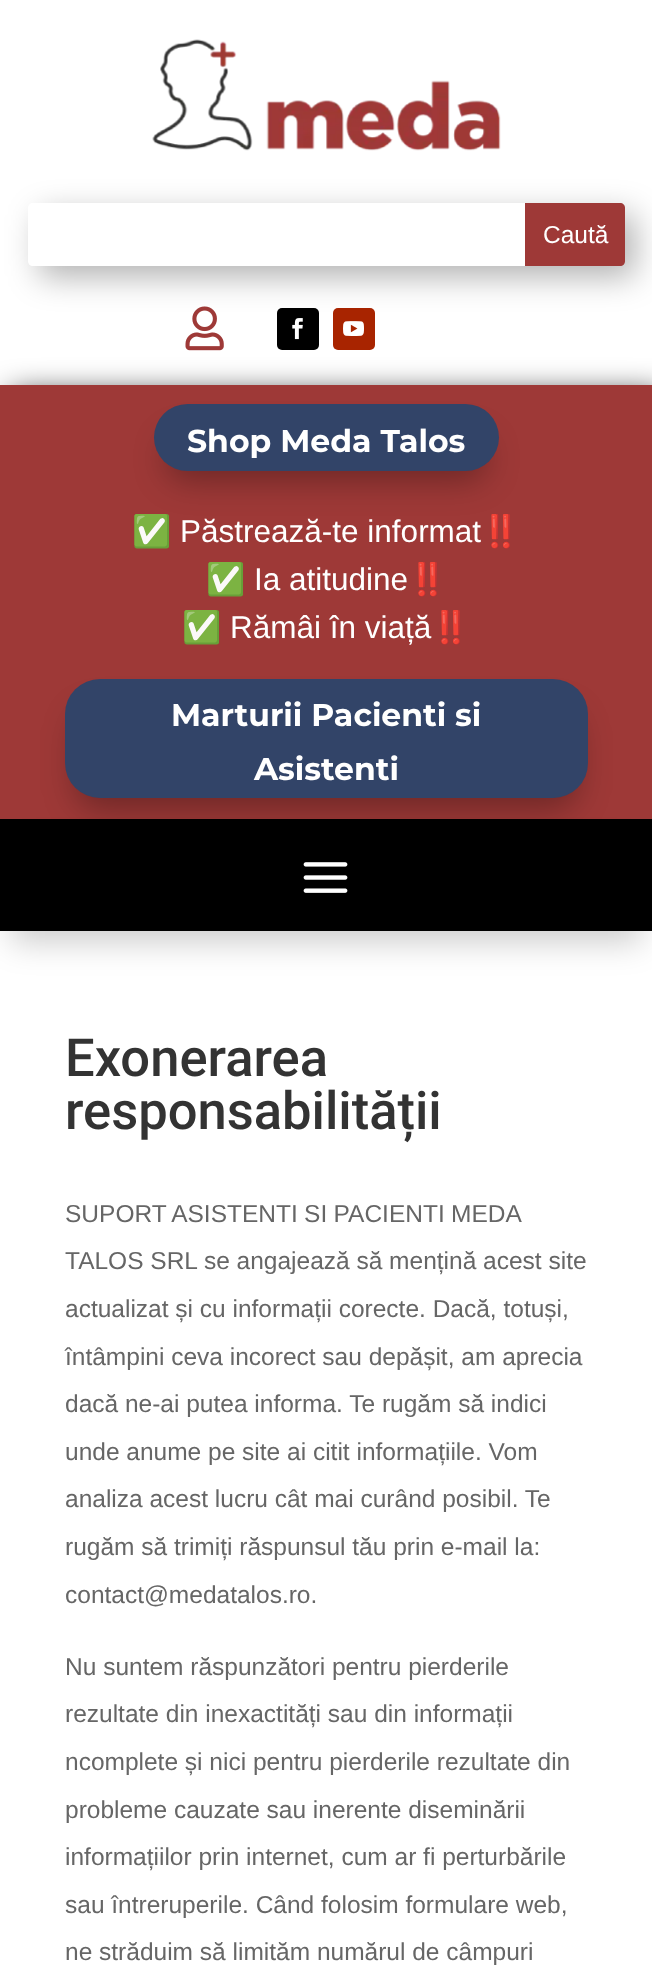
<svg xmlns="http://www.w3.org/2000/svg" width="652" height="1978" viewBox="0 0 652 1978">
  <rect width="100%" height="100%" fill="rgb(255,255,255)"/>
  <image x="152" y="39" width="349" height="112" href="pic1.png"/>
  <rect x="39" y="214" width="596" height="63" rx="5" fill="rgba(0,0,0,0.3)" filter="blur(16px)"/>
  <path d="M33 203H525V266H33C30 266 28 264 28 261V208C28 205 30 203 33 203Z" fill="rgb(255,255,255)"/>
  <path d="M525 203H620C623 203 625 205 625 208V261C625 264 623 266 620 266H525Z" fill="rgb(158,57,55)"/>
  <text x="543" y="243" font-family="Liberation Sans" font-size="24.5" fill="rgb(255,255,255)">Caută</text>
  <image x="185" y="306" width="39" height="45" href="pic2.png"/>
  <rect x="277" y="308" width="42" height="42" rx="5" fill="rgb(0,0,0)"/>
  <image x="292" y="318" width="11" height="22" href="pic3.png"/>
  <rect x="333" y="308" width="42" height="42" rx="5" fill="rgb(168,36,0)"/>
  <image x="343" y="321" width="21" height="15" href="pic4.png"/>
  <rect x="11" y="396" width="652" height="434" fill="rgb(0,0,0)" filter="blur(16px)"/>
  <rect x="0" y="385" width="652" height="434" fill="rgb(158,57,55)"/>
  <rect x="165" y="436" width="323" height="45" rx="22.5" fill="rgba(0,0,0,0.3)" filter="blur(16px)"/>
  <rect x="154" y="404" width="345" height="67" rx="33.5" fill="rgb(50,68,104)"/>
  <text x="187" y="452" font-family="Montserrat" font-size="31.5" font-weight="bold" fill="rgb(255,255,255)">Shop Meda Talos</text>
  <text x="132" y="542" font-family="Noto Color Emoji" font-size="31.5" fill="rgb(255,255,255)">✅</text>
  <text x="180" y="542" font-family="Liberation Sans" font-size="31.5" fill="rgb(255,255,255)">Păstrează-te informat</text>
  <g font-family="Noto Color Emoji" font-size="31.5" fill="rgb(255,255,255)">
    <text x="481" y="542">‼️</text>
    <text x="206" y="590">✅</text>
  </g>
  <text x="254" y="590" font-family="Liberation Sans" font-size="31.5" fill="rgb(255,255,255)">Ia atitudine</text>
  <g font-family="Noto Color Emoji" font-size="31.5" fill="rgb(255,255,255)">
    <text x="408" y="590">‼️</text>
    <text x="182" y="638">✅</text>
  </g>
  <text x="230" y="638" font-family="Liberation Sans" font-size="31.5" fill="rgb(255,255,255)">Rămâi în viață</text>
  <text x="431" y="638" font-family="Noto Color Emoji" font-size="31.5" fill="rgb(255,255,255)">‼️</text>
  <rect x="75" y="711" width="503" height="98" rx="25" fill="rgba(0,0,0,0.3)" filter="blur(16px)"/>
  <rect x="65" y="679" width="523" height="119" rx="35" fill="rgb(50,68,104)"/>
  <g font-family="Montserrat" font-size="31.5" font-weight="bold" fill="rgb(255,255,255)">
    <text x="171" y="726">Marturii Pacienti si</text>
    <text x="254" y="780">Asistenti</text>
  </g>
  <rect x="11" y="851" width="631" height="91" fill="rgba(0,0,0,0.2)" filter="blur(16px)"/>
  <rect x="0" y="819" width="652" height="112" fill="rgb(0,0,0)"/>
  <image x="303" y="862" width="45" height="31" href="pic5.png"/>
  <g font-family="Roboto" font-size="52.5" font-weight="500" fill="rgb(51,51,51)">
    <text>
      <tspan x="65" y="1076">Exonerarea</tspan>
      <tspan x="65" y="1129">responsabilității</tspan>
    </text>
  </g>
  <g font-family="Liberation Sans" font-size="24.5" fill="rgb(102,102,102)">
    <text>
      <tspan x="65" y="1222" word-spacing="-0.5">SUPORT ASISTENTI SI PACIENTI MEDA</tspan>
      <tspan x="65" y="1269">TALOS SRL se angajează să mențină acest site</tspan>
      <tspan x="65" y="1317">actualizat și cu informații corecte. Dacă, totuși,</tspan>
      <tspan x="65" y="1365">întâmpini ceva incorect sau depășit, am aprecia</tspan>
      <tspan x="65" y="1412">dacă ne-ai putea informa. Te rugăm să indici</tspan>
      <tspan x="65" y="1460">unde anume pe site ai citit informațiile. Vom</tspan>
      <tspan x="65" y="1507">analiza acest lucru cât mai curând posibil. Te</tspan>
      <tspan x="65" y="1555">rugăm să trimiți răspunsul tău prin e-mail la:</tspan>
      <tspan x="65" y="1603">contact@medatalos.ro.</tspan>
    </text>
    <text>
      <tspan x="65" y="1675">Nu suntem răspunzători pentru pierderile</tspan>
      <tspan x="65" y="1722">rezultate din inexactități sau din informații</tspan>
      <tspan x="65" y="1770">ncomplete și nici pentru pierderile rezultate din</tspan>
      <tspan x="65" y="1818">probleme cauzate sau inerente diseminării</tspan>
      <tspan x="65" y="1865">informațiilor prin internet, cum ar fi perturbările</tspan>
      <tspan x="65" y="1913">sau întreruperile. Când folosim formulare web,</tspan>
      <tspan x="65" y="1960">ne străduim să limităm numărul de câmpuri</tspan>
    </text>
  </g>
</svg>
